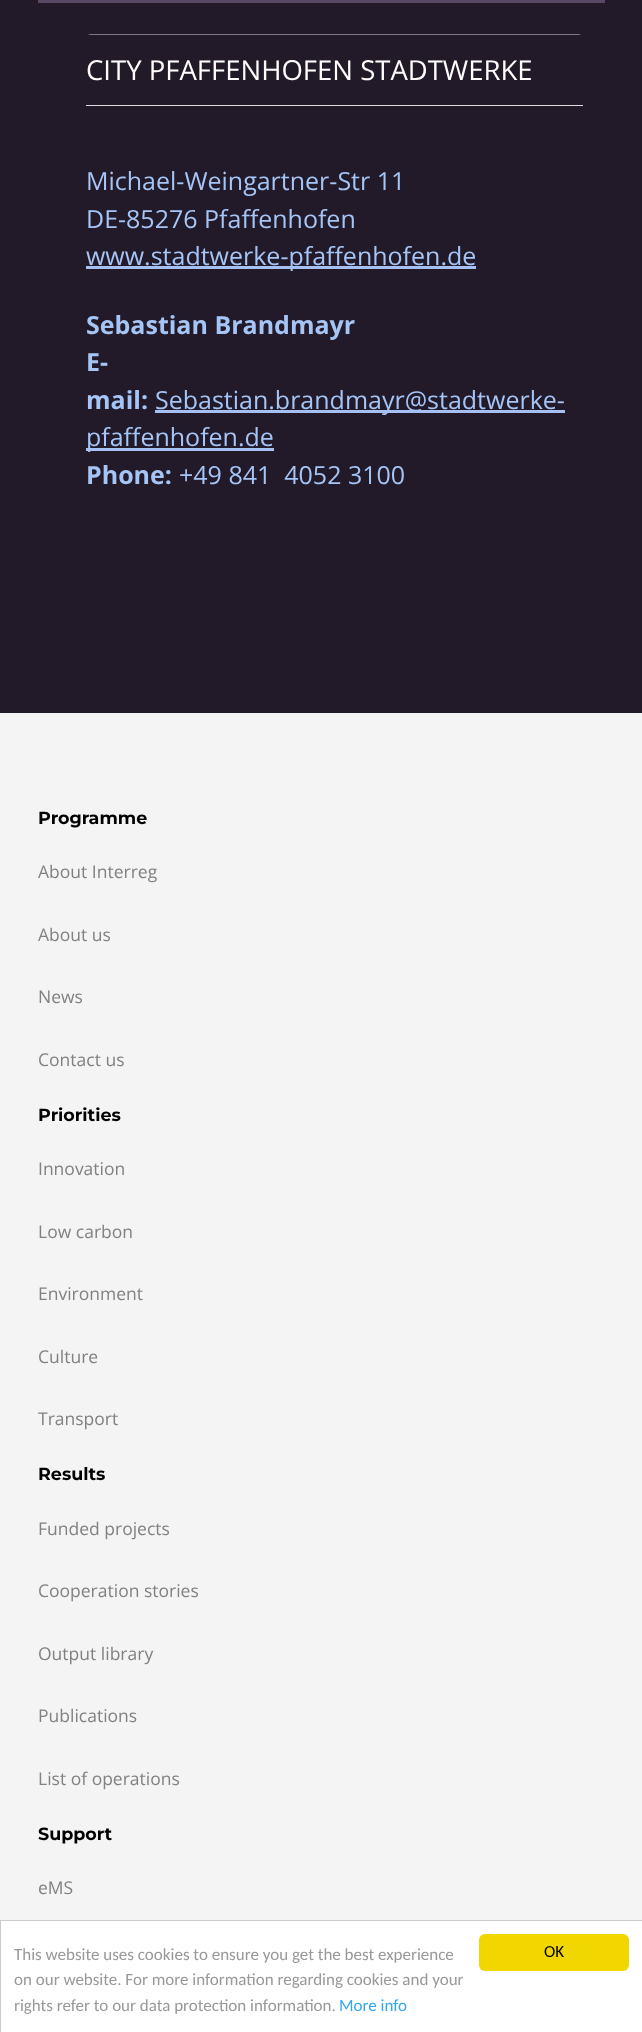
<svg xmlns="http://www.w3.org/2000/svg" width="642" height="2032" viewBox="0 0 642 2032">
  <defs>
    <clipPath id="clip1"><rect x="86" y="34" width="497" height="510" rx="5"/></clipPath>
  </defs>
  <rect width="100%" height="100%" fill="rgb(244,244,244)"/>
  <rect x="0" y="0" width="642" height="713" fill="rgb(34,26,41)"/>
  <rect x="38" y="0" width="567" height="3" fill="rgb(88,72,101)"/>
  <g clip-path="url(#clip1)">
    <rect x="86" y="34" width="497" height="1" fill="rgb(131,119,133)"/>
  </g>
  <text x="86" y="80" font-family="Open Sans" font-size="27.5" fill="rgb(255,255,255)">CITY PFAFFENHOFEN STADTWERKE</text>
  <rect x="86" y="105" width="497" height="1" fill="rgb(221,221,221)"/>
  <g font-family="Open Sans" font-size="25" fill="rgb(165,197,246)">
    <text>
      <tspan x="86" y="190">Michael-Weingartner-Str 11</tspan>
      <tspan x="86" y="228">DE-85276 Pfaffenhofen</tspan>
    </text>
  </g>
  <rect x="86" y="266" width="390" height="3" fill="rgb(165,192,245)"/>
  <text x="86" y="265" font-family="Open Sans" font-size="25" fill="rgb(165,197,246)">www.stadtwerke-pfaffenhofen.de</text>
  <g font-family="Open Sans" font-size="25" font-weight="bold" fill="rgb(165,197,246)">
    <text>
      <tspan x="86" y="334">Sebastian Brandmayr</tspan>
      <tspan x="86" y="371">E-</tspan>
      <tspan x="86" y="409">mail:</tspan>
    </text>
  </g>
  <rect x="155" y="410" width="410" height="3" fill="rgb(165,192,245)"/>
  <text x="155" y="409" font-family="Open Sans" font-size="25" fill="rgb(165,197,246)">Sebastian.brandmayr@stadtwerke-</text>
  <rect x="86" y="448" width="188" height="3" fill="rgb(165,192,245)"/>
  <text x="86" y="446" font-family="Open Sans" font-size="25" fill="rgb(165,197,246)">pfaffenhofen.de</text>
  <text x="86" y="484" font-family="Open Sans" font-size="25" font-weight="bold" fill="rgb(165,197,246)">Phone:</text>
  <text x="179" y="484" font-family="Open Sans" font-size="25" fill="rgb(165,197,246)" xml:space="preserve">+49 841  4052 3100</text>
  <text x="38" y="824" font-family="Montserrat" font-size="17.5" font-weight="bold" fill="rgb(0,0,0)">Programme</text>
  <g font-family="Open Sans" font-size="17.5" fill="rgb(129,129,129)">
    <text x="38" y="878">About Interreg</text>
    <text x="38" y="941">About us</text>
    <text x="38" y="1003">News</text>
    <text x="38" y="1066">Contact us</text>
  </g>
  <text x="38" y="1121" font-family="Montserrat" font-size="17.5" font-weight="bold" fill="rgb(0,0,0)">Priorities</text>
  <g font-family="Open Sans" font-size="17.5" fill="rgb(129,129,129)">
    <text x="38" y="1175">Innovation</text>
    <text x="38" y="1238">Low carbon</text>
    <text x="38" y="1300">Environment</text>
    <text x="38" y="1363">Culture</text>
    <text x="38" y="1425">Transport</text>
  </g>
  <text x="38" y="1480" font-family="Montserrat" font-size="17.5" font-weight="bold" fill="rgb(0,0,0)">Results</text>
  <g font-family="Open Sans" font-size="17.5" fill="rgb(129,129,129)">
    <text x="38" y="1535">Funded projects</text>
    <text x="38" y="1597">Cooperation stories</text>
    <text x="38" y="1660">Output library</text>
    <text x="38" y="1722">Publications</text>
    <text x="38" y="1785">List of operations</text>
  </g>
  <text x="38" y="1840" font-family="Montserrat" font-size="17.5" font-weight="bold" fill="rgb(0,0,0)">Support</text>
  <text x="38" y="1894" font-family="Open Sans" font-size="17.5" fill="rgb(129,129,129)">eMS</text>
  <rect x="0.5" y="1920.5" width="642" height="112" fill="rgb(255,255,255)" stroke="rgb(204,204,204)"/>
  <g font-family="Carlito" font-size="17" fill="rgb(153,153,153)">
    <text>
      <tspan x="14" y="1960">This website uses cookies to ensure you get the best experience</tspan>
      <tspan x="14" y="1985">on our website. For more information regarding cookies and your</tspan>
      <tspan x="14" y="2011">rights refer to our data protection information.</tspan>
    </text>
  </g>
  <text x="339" y="2011" font-family="Carlito" font-size="17" fill="rgb(49,168,240)">More info</text>
  <rect x="479" y="1934" width="150" height="37" rx="6" fill="rgb(241,214,0)"/>
  <text x="544" y="1957" font-family="Carlito" font-size="17" fill="rgb(0,0,0)">OK</text>
</svg>
